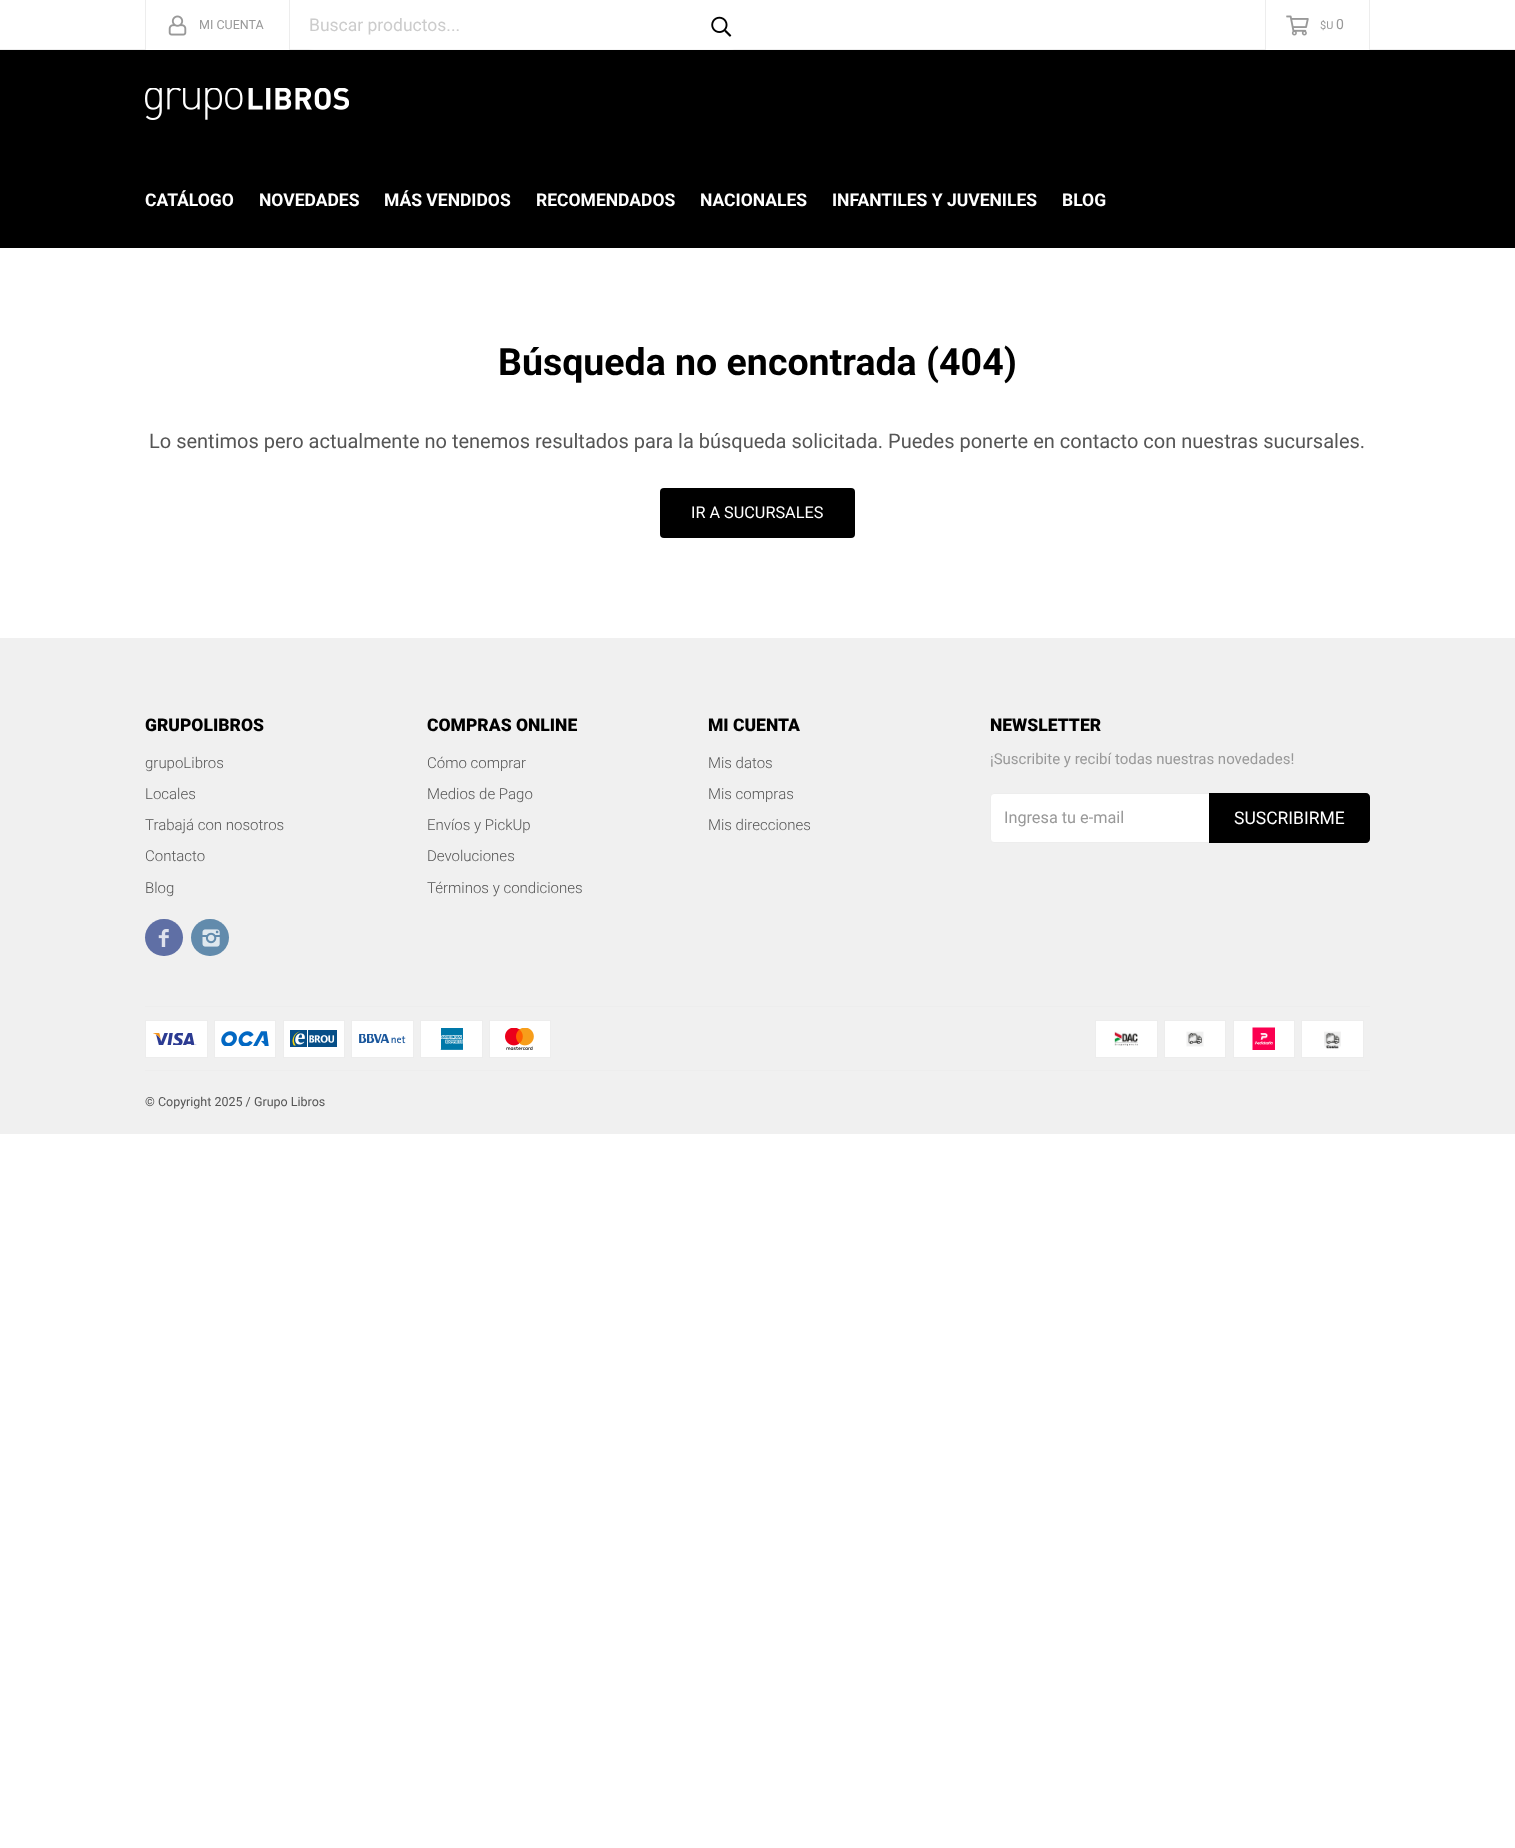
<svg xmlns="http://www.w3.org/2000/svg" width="1515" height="1848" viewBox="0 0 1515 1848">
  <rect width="100%" height="100%" fill="rgb(255,255,255)"/>
  <rect x="0" y="49" width="1515" height="1" fill="rgb(237,237,237)"/>
  <rect x="146" y="49" width="143" height="1" fill="rgb(255,255,255)"/>
  <rect x="145" y="0" width="1" height="50" fill="rgb(237,237,237)"/>
  <image x="168" y="15" width="19" height="21" href="pic1.png"/>
  <text x="199" y="29" font-family="Roboto" font-size="12.5" fill="rgb(153,153,153)">MI CUENTA</text>
  <rect x="289" y="0" width="1" height="50" fill="rgb(237,237,237)"/>
  <rect x="290" y="0" width="463" height="50" rx="25" fill="rgba(255,255,255,0.5)"/>
  <text x="309" y="31" font-family="Roboto" font-size="17.5" fill="rgb(204,204,204)">Buscar productos...</text>
  <image x="711" y="16" width="21" height="21" href="pic2.png"/>
  <rect x="1266" y="49" width="103" height="1" fill="rgb(255,255,255)"/>
  <rect x="1369" y="0" width="1" height="50" fill="rgb(237,237,237)"/>
  <rect x="1265" y="0" width="1" height="50" fill="rgb(237,237,237)"/>
  <image x="1286" y="15" width="23" height="21" href="pic3.png"/>
  <text x="1320" y="29" font-family="Roboto" font-size="11" fill="rgb(153,153,153)">$U</text>
  <text x="1336" y="29" font-family="Roboto" font-size="14" fill="rgb(153,153,153)">0</text>
  <rect x="0" y="50" width="1515" height="198" fill="rgb(0,0,0)"/>
  <image x="145" y="88" width="204" height="32" href="pic4.png"/>
  <g font-family="Roboto" font-size="17.5" font-weight="bold" fill="rgb(255,255,255)">
    <text x="145" y="206">CATÁLOGO</text>
    <text x="259" y="206">NOVEDADES</text>
    <text x="384" y="206">MÁS VENDIDOS</text>
    <text x="536" y="206">RECOMENDADOS</text>
    <text x="700" y="206">NACIONALES</text>
    <text x="832" y="206">INFANTILES Y JUVENILES</text>
    <text x="1062" y="206">BLOG</text>
  </g>
  <text x="498" y="375" font-family="Roboto" font-size="37.5" font-weight="bold" fill="rgb(0,0,0)">Búsqueda no encontrada (404)</text>
  <text x="149" y="448" font-family="Roboto" font-size="20" fill="rgb(85,85,85)">Lo sentimos pero actualmente no tenemos resultados para la búsqueda solicitada. Puedes ponerte en contacto con nuestras sucursales.</text>
  <rect x="660" y="488" width="195" height="50" rx="4" fill="rgb(0,0,0)"/>
  <text x="691" y="518" font-family="Roboto" font-size="16.25" fill="rgb(255,255,255)">IR A SUCURSALES</text>
  <rect x="0" y="638" width="1515" height="496" fill="rgb(240,240,240)"/>
  <text x="145" y="731" font-family="Roboto" font-size="17.5" font-weight="900" fill="rgb(0,0,0)">GRUPOLIBROS</text>
  <g font-family="Roboto" font-size="15" font-weight="300" fill="rgb(85,85,85)">
    <text x="145" y="768">grupoLibros</text>
    <text x="145" y="799">Locales</text>
    <text x="145" y="830">Trabajá con nosotros</text>
    <text x="145" y="861">Contacto</text>
    <text x="145" y="893">Blog</text>
  </g>
  <rect x="145" y="919" width="38" height="37" rx="18.5" fill="rgb(95,111,165)"/>
  <image x="158" y="929" width="11" height="18" href="pic5.png"/>
  <rect x="191" y="919" width="38" height="37" rx="18.5" fill="rgb(98,139,172)"/>
  <image x="202" y="929" width="18" height="18" href="pic6.png"/>
  <text x="427" y="731" font-family="Roboto" font-size="17.5" font-weight="900" fill="rgb(0,0,0)">COMPRAS ONLINE</text>
  <g font-family="Roboto" font-size="15" font-weight="300" fill="rgb(85,85,85)">
    <text x="427" y="768">Cómo comprar</text>
    <text x="427" y="799">Medios de Pago</text>
    <text x="427" y="830">Envíos y PickUp</text>
    <text x="427" y="861">Devoluciones</text>
    <text x="427" y="893">Términos y condiciones</text>
  </g>
  <text x="708" y="731" font-family="Roboto" font-size="17.5" font-weight="900" fill="rgb(0,0,0)">MI CUENTA</text>
  <g font-family="Roboto" font-size="15" font-weight="300" fill="rgb(85,85,85)">
    <text x="708" y="768">Mis datos</text>
    <text x="708" y="799">Mis compras</text>
    <text x="708" y="830">Mis direcciones</text>
  </g>
  <text x="990" y="731" font-family="Roboto" font-size="17.5" font-weight="900" fill="rgb(0,0,0)">NEWSLETTER</text>
  <text x="990" y="764" font-family="Roboto" font-size="15" fill="rgb(153,153,153)">¡Suscribite y recibí todas nuestras novedades!</text>
  <rect x="990.5" y="793.5" width="379" height="49" rx="3.5" fill="rgb(255,255,255)" stroke="rgb(237,237,237)"/>
  <text x="1004" y="823" font-family="Roboto" font-size="16.25" fill="rgb(153,153,153)">Ingresa tu e-mail</text>
  <path d="M1209 793H1366C1368 793 1370 795 1370 797V839C1370 841 1368 843 1366 843H1209Z" fill="rgb(0,0,0)"/>
  <text x="1234" y="824" font-family="Roboto" font-size="17.5" fill="rgb(255,255,255)">SUSCRIBIRME</text>
  <rect x="145" y="1006" width="1225" height="1" fill="rgb(237,237,237)"/>
  <rect x="145.5" y="1020.5" width="62" height="37" fill="rgb(255,255,255)" stroke="rgb(237,237,237)"/>
  <image x="153" y="1033" width="44" height="12" href="pic7.png"/>
  <rect x="214.5" y="1020.5" width="61" height="37" fill="rgb(255,255,255)" stroke="rgb(237,237,237)"/>
  <image x="221" y="1031" width="48" height="15" href="pic8.png"/>
  <rect x="283.5" y="1020.5" width="61" height="37" fill="rgb(255,255,255)" stroke="rgb(237,237,237)"/>
  <image x="290" y="1030" width="47" height="17" href="pic9.png"/>
  <rect x="351.5" y="1020.5" width="62" height="37" fill="rgb(255,255,255)" stroke="rgb(237,237,237)"/>
  <image x="359" y="1034" width="47" height="10" href="pic10.png"/>
  <rect x="420.5" y="1020.5" width="62" height="37" fill="rgb(255,255,255)" stroke="rgb(237,237,237)"/>
  <image x="440" y="1028" width="23" height="22" href="pic11.png"/>
  <rect x="489.5" y="1020.5" width="61" height="37" fill="rgb(255,255,255)" stroke="rgb(237,237,237)"/>
  <image x="505" y="1028" width="29" height="22" href="pic12.png"/>
  <rect x="1095.5" y="1020.5" width="62" height="37" fill="rgb(255,255,255)" stroke="rgb(237,237,237)"/>
  <image x="1114" y="1031" width="24" height="15" href="pic13.png"/>
  <rect x="1164.5" y="1020.5" width="61" height="37" fill="rgb(255,255,255)" stroke="rgb(237,237,237)"/>
  <image x="1186" y="1031" width="18" height="16" href="pic14.png"/>
  <rect x="1233.5" y="1020.5" width="61" height="37" fill="rgb(255,255,255)" stroke="rgb(237,237,237)"/>
  <image x="1252" y="1027" width="23" height="23" href="pic15.png"/>
  <rect x="1301.5" y="1020.5" width="62" height="37" fill="rgb(255,255,255)" stroke="rgb(237,237,237)"/>
  <image x="1324" y="1031" width="17" height="18" href="pic16.png"/>
  <rect x="145" y="1070" width="1225" height="1" fill="rgb(237,237,237)"/>
  <text x="145" y="1106" font-family="Roboto" font-size="12.5" fill="rgb(85,85,85)">© Copyright 2025 / Grupo Libros</text>
</svg>
